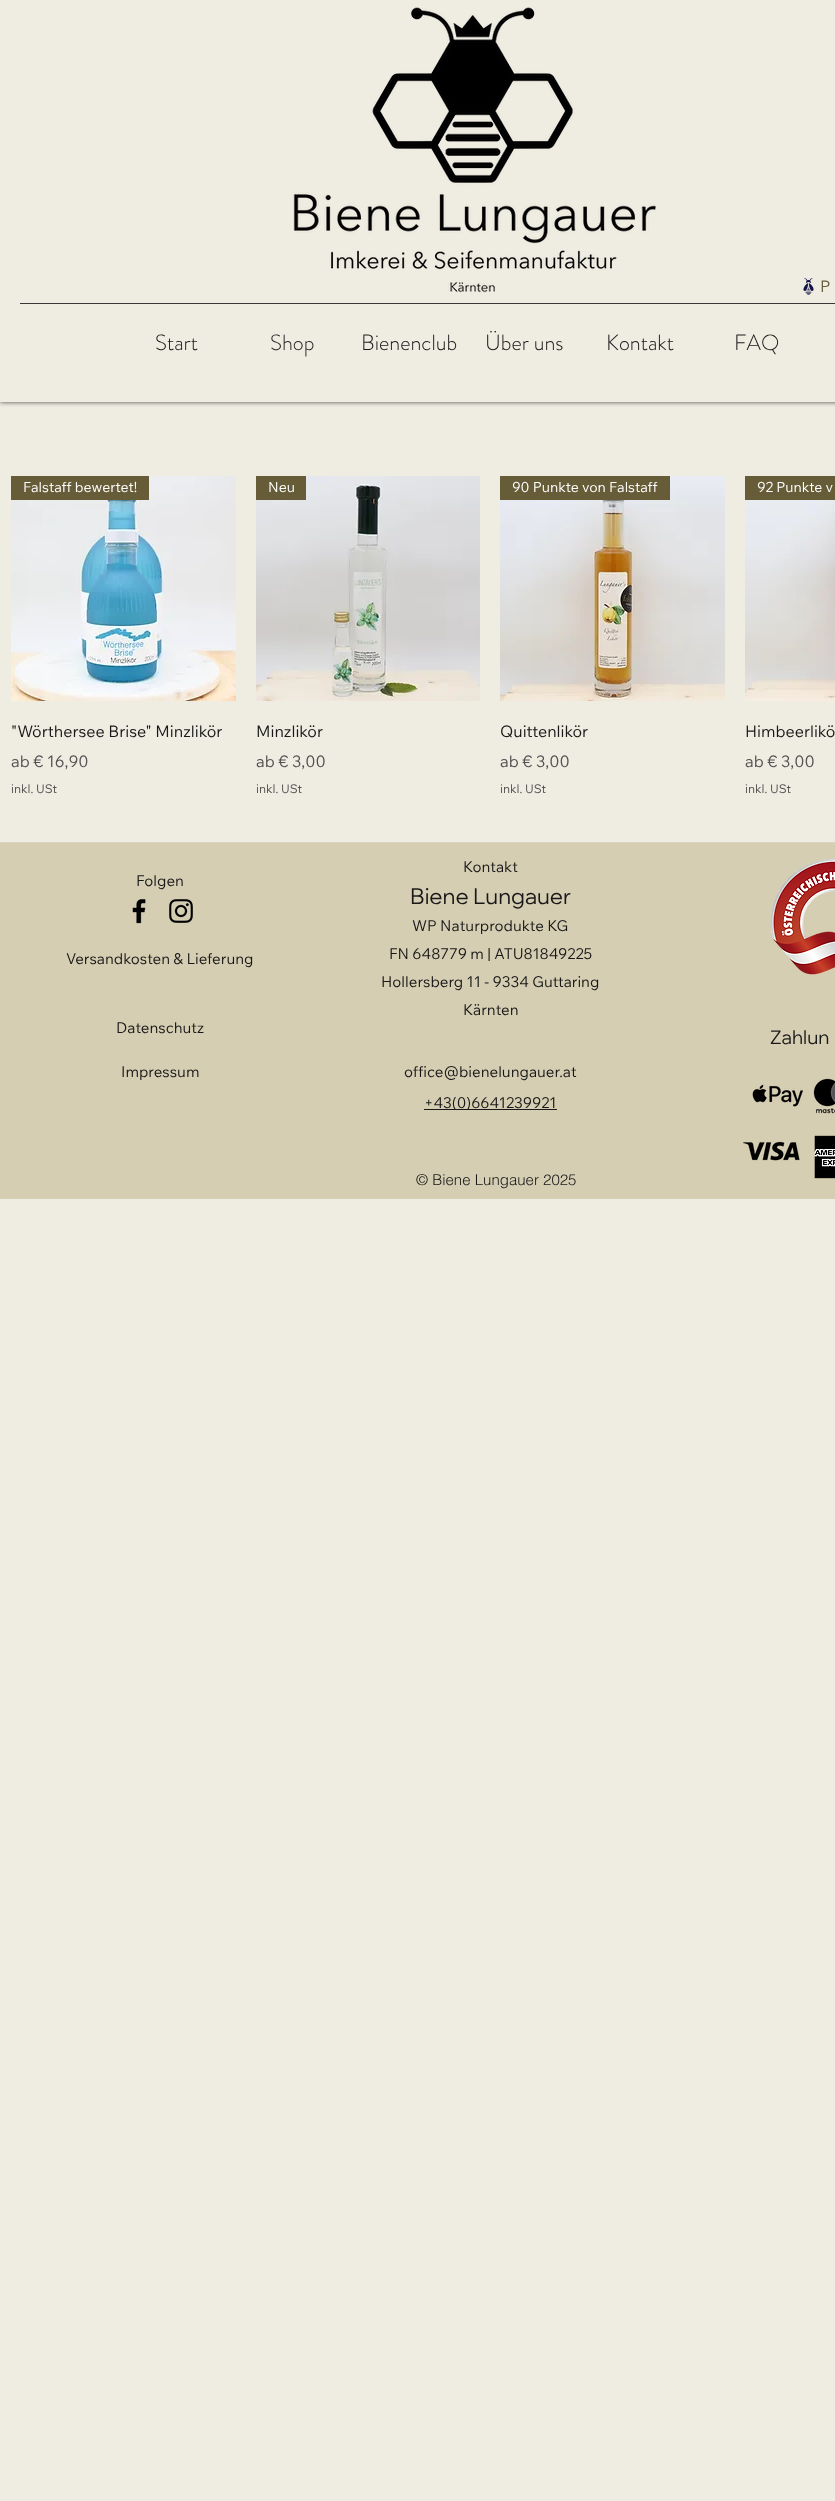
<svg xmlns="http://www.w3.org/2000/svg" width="835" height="2501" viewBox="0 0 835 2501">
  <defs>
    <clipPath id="clip1"><rect x="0" y="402" width="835" height="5"/></clipPath>
  </defs>
  <rect width="100%" height="100%" fill="rgb(239,236,226)"/>
  <g clip-path="url(#clip1)">
    <rect x="0" y="0" width="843" height="402" fill="rgba(0,0,0,0.7)" filter="blur(2.5px)"/>
  </g>
  <image x="293" y="7" width="363" height="286" href="pic1.png"/>
  <image x="803" y="278" width="11" height="17" href="pic2.png"/>
  <text x="820" y="292" font-family="Wix Madefor Text" font-size="16" fill="rgb(103,92,56)">P</text>
  <rect x="20" y="303" width="815" height="1" fill="rgb(56,56,54)"/>
  <text x="155" y="350" font-family="'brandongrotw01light'" font-size="22" font-weight="300" fill="rgb(24,24,24)">Start</text>
  <text x="270" y="350" font-family="'brandongrotw01light'" font-size="22" font-weight="300" fill="rgb(38,38,38)">Shop</text>
  <g font-family="'brandongrotw01light'" font-size="22" font-weight="300" fill="rgb(24,24,24)">
    <text x="361" y="350">Bienenclub</text>
    <text x="485" y="350">Über uns</text>
    <text x="606" y="350">Kontakt</text>
    <text x="734" y="350">FAQ</text>
  </g>
  <image x="11" y="476" width="225" height="225" href="pic3.png"/>
  <rect x="11" y="476" width="138" height="24" fill="rgb(103,92,56)"/>
  <text x="23" y="492" font-family="Wix Madefor Text" font-size="14" fill="rgb(255,255,255)">Falstaff bewertet!</text>
  <text x="11" y="737" font-family="Wix Madefor Text" font-size="16" fill="rgb(24,24,24)">"Wörthersee Brise" Minzlikör</text>
  <text x="11" y="767" font-family="Wix Madefor Text" font-size="16" fill="rgb(82,82,82)">ab € 16,90</text>
  <text x="11" y="793" font-family="Wix Madefor Text" font-size="12" fill="rgb(82,82,82)">inkl. USt</text>
  <image x="256" y="476" width="224" height="225" href="pic4.png"/>
  <rect x="256" y="476" width="50" height="24" fill="rgb(103,92,56)"/>
  <text x="268" y="492" font-family="Wix Madefor Text" font-size="14" fill="rgb(255,255,255)">Neu</text>
  <text x="256" y="737" font-family="Wix Madefor Text" font-size="16" fill="rgb(24,24,24)">Minzlikör</text>
  <text x="256" y="767" font-family="Wix Madefor Text" font-size="16" fill="rgb(82,82,82)">ab € 3,00</text>
  <text x="256" y="793" font-family="Wix Madefor Text" font-size="12" fill="rgb(82,82,82)">inkl. USt</text>
  <image x="500" y="476" width="225" height="225" href="pic5.png"/>
  <rect x="500" y="476" width="170" height="24" fill="rgb(103,92,56)"/>
  <text x="512" y="492" font-family="Wix Madefor Text" font-size="14" fill="rgb(255,255,255)">90 Punkte von Falstaff</text>
  <text x="500" y="737" font-family="Wix Madefor Text" font-size="16" fill="rgb(24,24,24)">Quittenlikör</text>
  <text x="500" y="767" font-family="Wix Madefor Text" font-size="16" fill="rgb(82,82,82)">ab € 3,00</text>
  <text x="500" y="793" font-family="Wix Madefor Text" font-size="12" fill="rgb(82,82,82)">inkl. USt</text>
  <rect x="745" y="476" width="90" height="24" fill="rgb(103,92,56)"/>
  <text x="757" y="492" font-family="Wix Madefor Text" font-size="14" fill="rgb(255,255,255)">92 Punkte v</text>
  <image x="745" y="500" width="90" height="201" href="pic6.png"/>
  <text x="745" y="737" font-family="Wix Madefor Text" font-size="16" fill="rgb(24,24,24)">Himbeerlikö</text>
  <text x="745" y="767" font-family="Wix Madefor Text" font-size="16" fill="rgb(82,82,82)">ab € 3,00</text>
  <text x="745" y="793" font-family="Wix Madefor Text" font-size="12" fill="rgb(82,82,82)">inkl. USt</text>
  <rect x="0" y="843" width="835" height="356" fill="rgb(214,206,179)"/>
  <rect x="0" y="842" width="835" height="1" fill="rgb(220,213,190)"/>
  <text x="463" y="872" font-family="Wix Madefor Text" font-size="15" fill="rgb(24,24,24)">Kontakt</text>
  <image x="770" y="858" width="65" height="117" href="pic7.png"/>
  <text x="136" y="886" font-family="Wix Madefor Text" font-size="15" fill="rgb(24,24,24)">Folgen</text>
  <image x="132" y="899" width="14" height="25" href="pic8.png"/>
  <image x="169" y="899" width="24" height="24" href="pic9.png"/>
  <text x="410" y="904" font-family="Wix Madefor Display" font-size="22" fill="rgb(24,24,24)">Biene Lungauer</text>
  <g font-family="Wix Madefor Text" font-size="15" fill="rgb(24,24,24)">
    <text x="66" y="964">Versandkosten &amp; Lieferung</text>
    <text x="412" y="931">WP Naturprodukte KG</text>
    <text x="389" y="959">FN 648779 m | ATU81849225</text>
    <text x="381" y="987">Hollersberg 11 - 9334 Guttaring</text>
    <text x="463" y="1015">Kärnten</text>
    <text x="116" y="1033">Datenschutz</text>
  </g>
  <text x="770" y="1044" font-family="Wix Madefor Display" font-size="19" fill="rgb(24,24,24)">Zahlun</text>
  <g font-family="Wix Madefor Text" font-size="15" fill="rgb(24,24,24)">
    <text x="121" y="1077">Impressum</text>
    <text x="404" y="1077">office@bienelungauer.at</text>
  </g>
  <rect x="424" y="1109" width="133" height="1" fill="rgb(24,24,24)"/>
  <text x="424" y="1108" font-family="Wix Madefor Text" font-size="15" fill="rgb(24,24,24)">+43(0)6641239921</text>
  <image x="752" y="1084" width="51" height="23" href="pic10.png"/>
  <image x="813" y="1078" width="22" height="36" href="pic11.png"/>
  <image x="743" y="1141" width="57" height="20" href="pic12.png"/>
  <image x="814" y="1135" width="21" height="44" href="pic13.png"/>
  <text x="416" y="1185" font-family="helvetica" font-size="15" font-weight="300" fill="rgb(24,24,24)">© Biene Lungauer 2025</text>
</svg>
